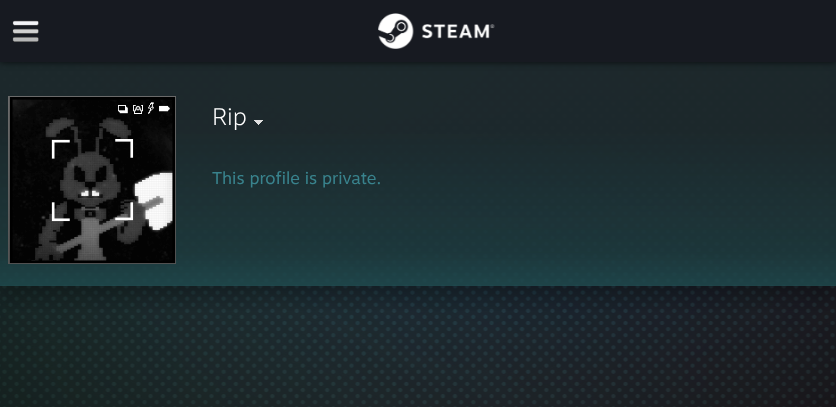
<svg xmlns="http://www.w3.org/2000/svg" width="836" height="407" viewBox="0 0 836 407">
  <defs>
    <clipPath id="clip1"><rect x="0" y="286" width="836" height="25"/></clipPath>
    <linearGradient id="g1" gradientUnits="userSpaceOnUse" x1="92" y1="96" x2="92" y2="264"><stop offset="0.05" stop-color="rgb(106,106,106)"/><stop offset="0.95" stop-color="rgb(85,85,85)"/></linearGradient>
  </defs>
  <rect width="100%" height="100%" fill="rgb(255,255,255)"/>
  <image x="0" y="62" width="836" height="345" href="pic1.png"/>
  <rect x="0" y="0" width="836" height="62" fill="rgba(0,0,0,0.75)" filter="blur(3.5px)"/>
  <g clip-path="url(#clip1)">
    <rect x="0" y="72" width="836" height="224" fill="rgba(0,0,0,0.3)" filter="blur(10px)"/>
  </g>
  <rect x="0" y="0" width="836" height="62" fill="rgb(23,26,33)"/>
  <image x="12" y="20" width="27" height="22" href="pic2.png"/>
  <image x="378" y="13" width="117" height="36" href="pic3.png"/>
  <rect x="8" y="96" width="168" height="168" fill="url(#g1)"/>
  <image x="12" y="99" width="161" height="162" href="pic5.png"/>
  <image x="9" y="97" width="167" height="167" href="pic4.png"/>
  <text x="212" y="125" font-family="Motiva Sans" font-size="24" font-weight="100" fill="rgb(255,255,255)">Rip</text>
  <image x="254" y="120" width="9" height="5" href="pic6.png"/>
  <text x="212" y="184" font-family="Motiva Sans" font-size="17" fill="rgb(57,131,141)">This profile is private.</text>
</svg>
